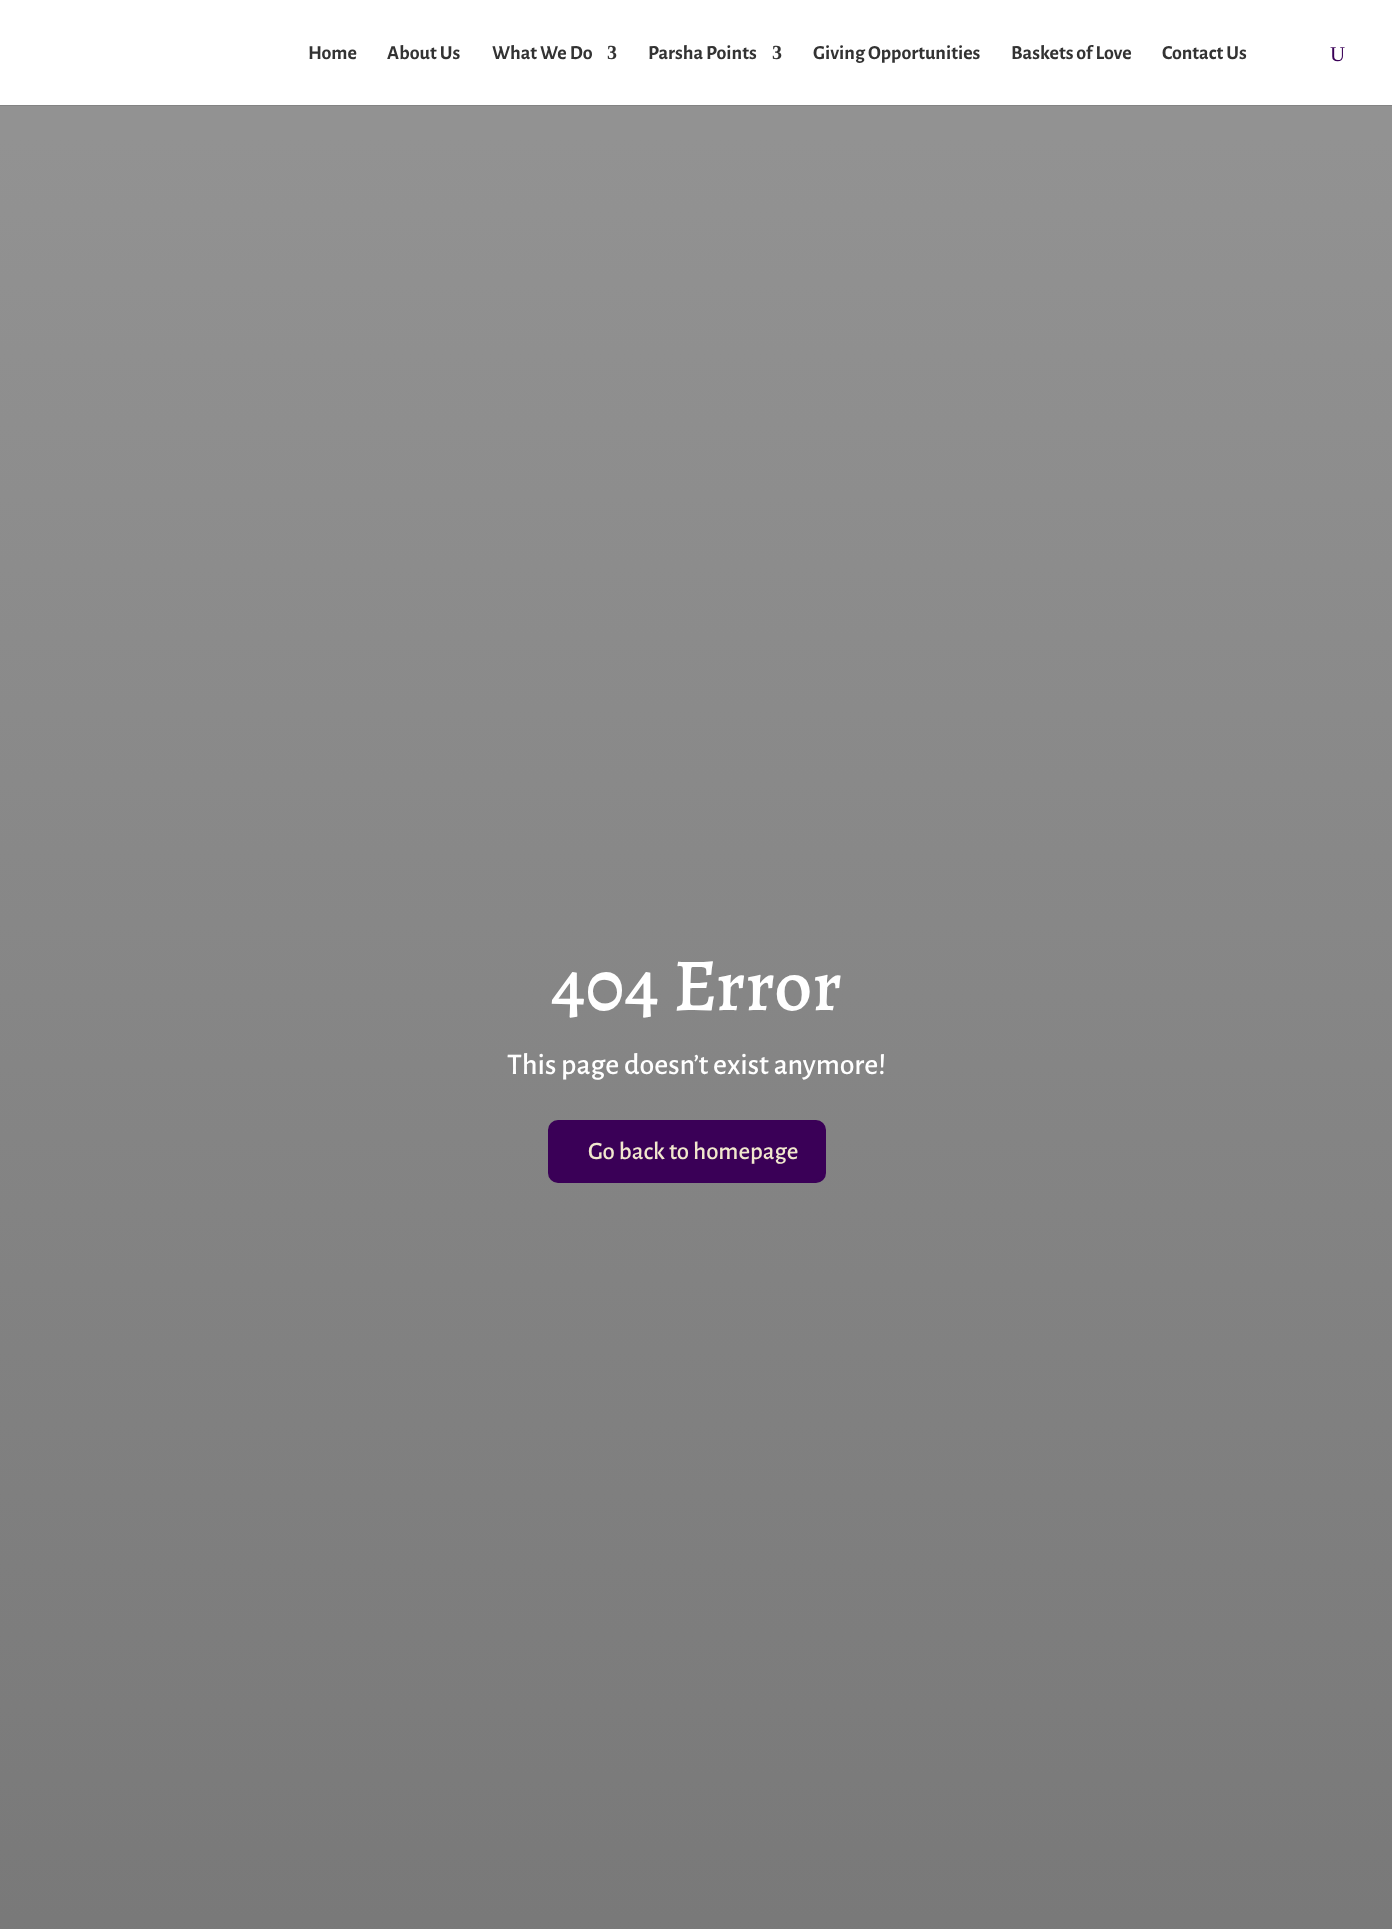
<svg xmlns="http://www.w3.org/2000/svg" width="1392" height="1929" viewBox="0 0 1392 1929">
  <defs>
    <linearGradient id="g1" gradientUnits="userSpaceOnUse" x1="696" y1="100" x2="696" y2="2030"><stop offset="0.02" stop-color="rgb(146,146,146)"/><stop offset="0.98" stop-color="rgb(120,120,120)"/></linearGradient>
  </defs>
  <rect width="100%" height="100%" fill="rgb(255,255,255)"/>
  <path d="M0 105V106H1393V1H1392V105Z" fill="rgb(131,131,131)"/>
  <g font-family="Alegreya Sans" font-size="20" font-weight="bold" fill="rgb(51,51,51)">
    <text x="308" y="59">Home</text>
    <text x="387" y="59">About Us</text>
    <text x="492" y="59">What We Do</text>
  </g>
  <text x="607" y="59" font-family="Liberation Serif" font-size="20" font-weight="bold" fill="rgb(51,51,51)">3</text>
  <text x="648" y="59" font-family="Alegreya Sans" font-size="20" font-weight="bold" fill="rgb(51,51,51)">Parsha Points</text>
  <text x="772" y="59" font-family="Liberation Serif" font-size="20" font-weight="bold" fill="rgb(51,51,51)">3</text>
  <g font-family="Alegreya Sans" font-size="20" font-weight="bold" fill="rgb(51,51,51)">
    <text x="813" y="59">Giving Opportunities</text>
    <text x="1011" y="59">Baskets of Love</text>
    <text x="1162" y="59">Contact Us</text>
  </g>
  <text x="1330" y="61" font-family="Liberation Serif" font-size="21" fill="rgb(58,0,87)">U</text>
  <rect x="0" y="106" width="1392" height="1823" fill="url(#g1)"/>
  <text x="551" y="1010" font-family="Alegreya" font-size="75" font-weight="500" fill="rgb(255,255,255)">404 Error</text>
  <text x="507" y="1074" font-family="Alegreya Sans" font-size="30" font-weight="500" fill="rgb(255,255,255)">This page doesn’t exist anymore!</text>
  <rect x="549.5" y="1121.5" width="275" height="60" rx="8.5" fill="rgb(58,0,87)" stroke="rgb(58,0,87)" stroke-width="3"/>
  <text x="588" y="1159" font-family="Alegreya Sans" font-size="25" font-weight="500" fill="rgb(241,232,205)">Go back to homepage</text>
</svg>
